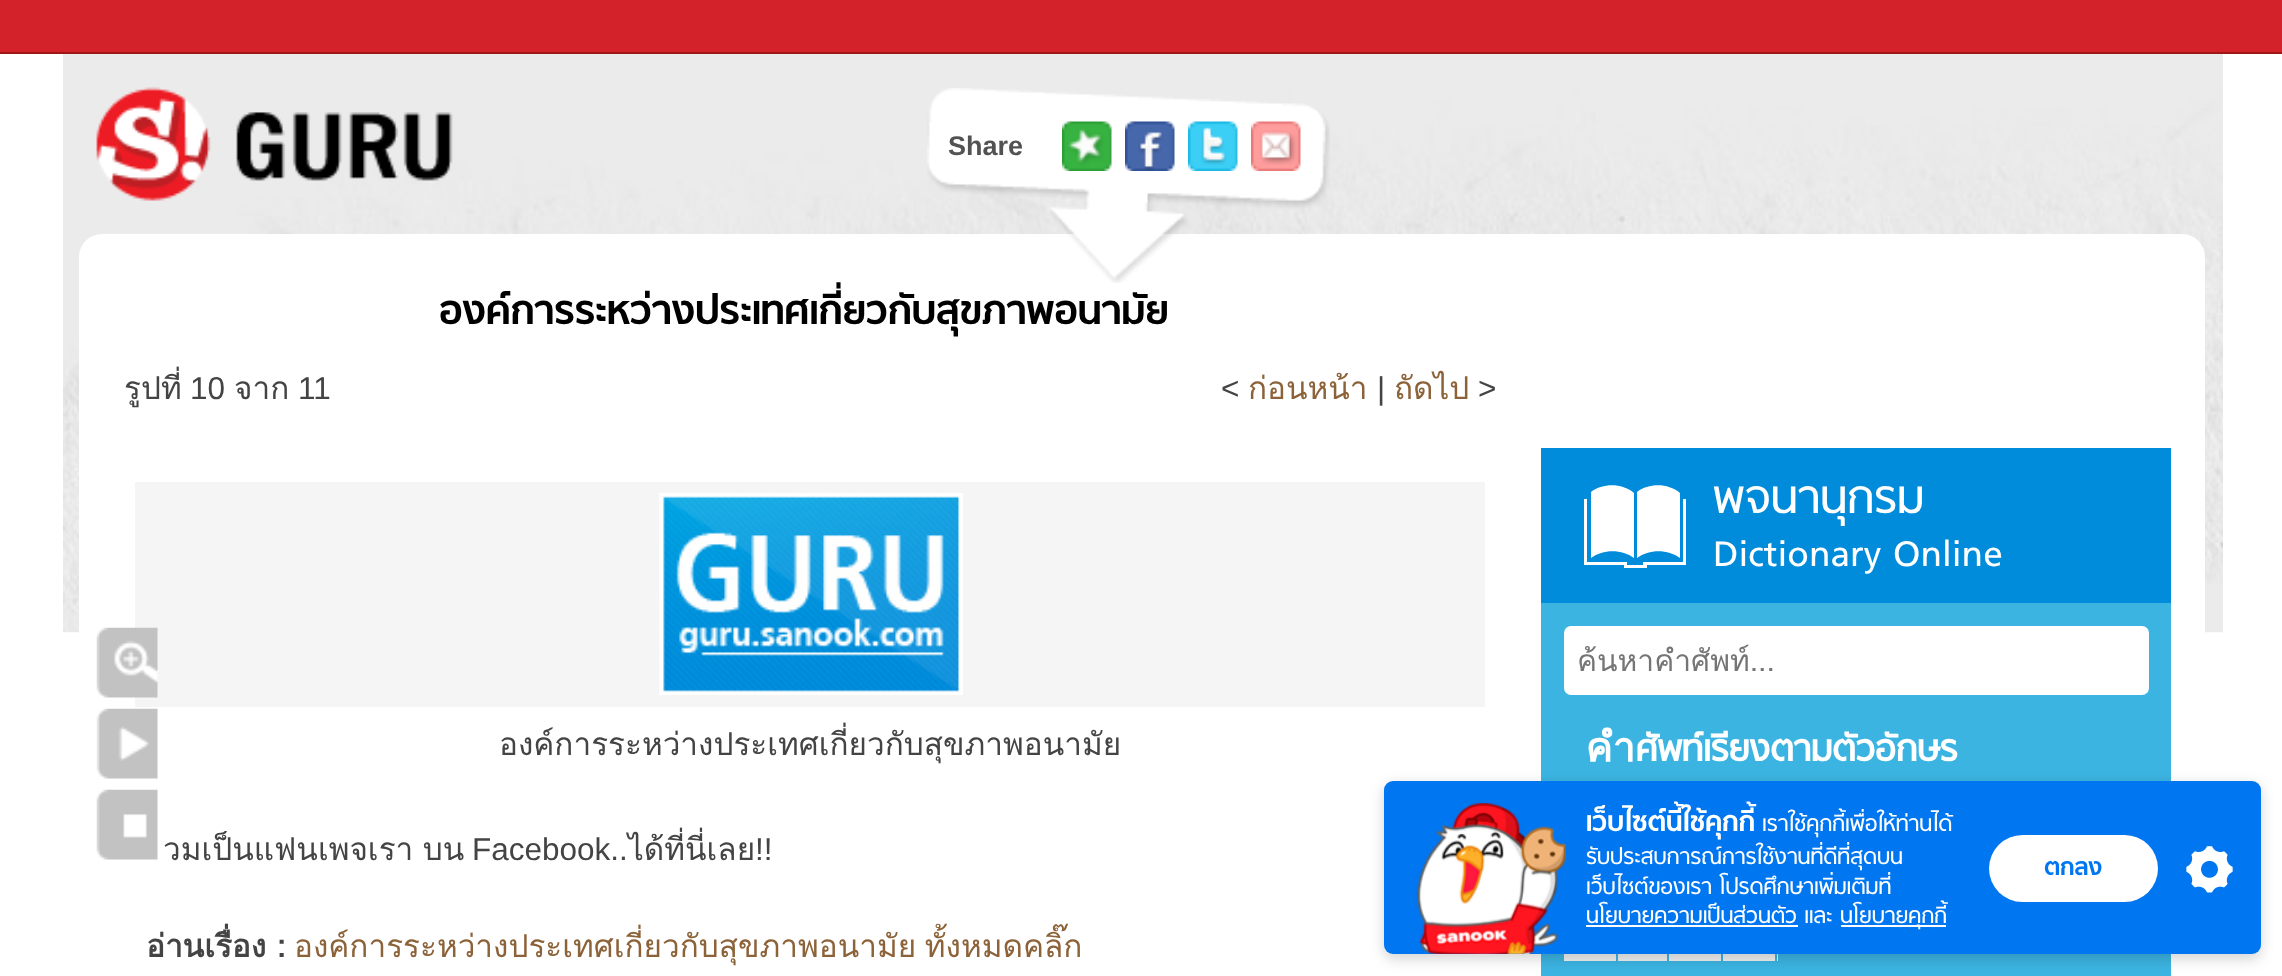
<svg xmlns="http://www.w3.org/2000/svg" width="2282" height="976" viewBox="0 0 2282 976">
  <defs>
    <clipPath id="clip1"><rect x="113" y="268" width="1383" height="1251"/></clipPath>
    <clipPath id="clip2"><rect x="1577" y="637" width="502" height="47"/></clipPath>
  </defs>
  <rect width="100%" height="100%" fill="rgb(255,255,255)"/>
  <rect x="0" y="0" width="2282" height="52" fill="rgb(211,34,42)"/>
  <rect x="0" y="52" width="2282" height="2" fill="rgb(157,25,25)"/>
  <image x="63" y="54" width="2160" height="579" href="pic1.png"/>
  <image x="96" y="87" width="357" height="114" href="pic2.png"/>
  <rect x="79" y="234" width="2126" height="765" rx="23" fill="rgb(255,255,255)"/>
  <text x="439" y="324" font-family="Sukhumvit" font-size="45" font-weight="bold" fill="rgb(0,0,0)">องค์การระหว่างประเทศเกี่ยวกับสุขภาพอนามัย</text>
  <image x="927" y="88" width="403" height="195" href="pic3.png"/>
  <text x="948" y="155" font-family="Liberation Sans" font-size="27" font-weight="bold" fill="rgb(82,82,82)">Share</text>
  <image x="1062" y="121" width="50" height="50" href="pic4.png"/>
  <image x="1125" y="121" width="50" height="50" href="pic5.png"/>
  <image x="1188" y="121" width="50" height="50" href="pic6.png"/>
  <image x="1251" y="121" width="50" height="50" href="pic7.png"/>
  <g clip-path="url(#clip1)">
    <text x="124" y="399" font-family="Loma" font-size="31.5" fill="rgb(68,68,68)">รูปที่</text>
  </g>
  <text x="190" y="399" font-family="Liberation Sans" font-size="31.5" fill="rgb(68,68,68)">10</text>
  <text x="234" y="399" font-family="Loma" font-size="31.5" fill="rgb(68,68,68)">จาก</text>
  <g font-family="Liberation Sans" font-size="31.5" fill="rgb(68,68,68)">
    <text x="298" y="399">11</text>
    <text x="1221" y="399">&lt;</text>
  </g>
  <text x="1248" y="399" font-family="Loma" font-size="31.5" fill="rgb(140,98,57)">ก่อนหน้า</text>
  <text x="1377" y="399" font-family="Liberation Sans" font-size="31.5" fill="rgb(68,68,68)">|</text>
  <text x="1394" y="399" font-family="Loma" font-size="31.5" fill="rgb(140,98,57)">ถัดไป</text>
  <text x="1478" y="399" font-family="Liberation Sans" font-size="31.5" fill="rgb(68,68,68)">&gt;</text>
  <rect x="135" y="482" width="1350" height="225" fill="rgb(245,245,245)"/>
  <image x="659" y="493" width="304" height="202" href="pic8.png"/>
  <g font-family="Loma" font-size="31.5" fill="rgb(68,68,68)">
    <text x="499" y="755">องค์การระหว่างประเทศเกี่ยวกับสุขภาพอนามัย</text>
    <text x="163" y="860" word-spacing="-1">วมเป็นแฟนเพจเรา บน</text>
  </g>
  <text x="472" y="860" font-family="Liberation Sans" font-size="31.5" fill="rgb(68,68,68)">Facebook..</text>
  <text x="628" y="860" font-family="Loma" font-size="31.5" fill="rgb(68,68,68)">ได้ที่นี่เลย</text>
  <text x="755" y="860" font-family="Liberation Sans" font-size="31.5" fill="rgb(68,68,68)">!!</text>
  <text x="146" y="957" font-family="Loma" font-size="31.5" font-weight="bold" fill="rgb(68,68,68)">อ่านเรื่อง :</text>
  <text x="294" y="957" word-spacing="-2" font-family="Loma" font-size="31.5" fill="rgb(140,98,57)">องค์การระหว่างประเทศเกี่ยวกับสุขภาพอนามัย ทั้งหมดคลิ๊ก</text>
  <rect x="1541" y="448" width="630" height="155" fill="rgb(0,139,219)"/>
  <path d="M1634 558V493C1622 483 1603 483 1591 492V558C1603 549 1622 549 1634 558ZM1680 558V493C1668 483 1649 483 1637 492V558C1649 549 1668 549 1680 558ZM1686 499H1683V562H1643V565H1627V562H1587V499H1584V565H1624V568H1647V565H1686Z" fill="rgb(255,255,255)"/>
  <text x="1713" y="513" font-family="Sukhumvit" font-size="51.75" fill="rgb(255,255,255)">พจนานุกรม</text>
  <text x="1713" y="566" font-family="Sukhumvit" font-size="40.5" fill="rgb(255,255,255)">Dictionary Online</text>
  <rect x="1541" y="603" width="630" height="373" fill="rgb(60,180,226)"/>
  <rect x="1564" y="626" width="585" height="69" rx="7" fill="rgb(255,255,255)"/>
  <g clip-path="url(#clip2)">
    <text x="1577" y="671" font-family="Loma" font-size="30" fill="rgb(117,117,117)">ค้นหาคำศัพท์...</text>
  </g>
  <text x="1586" y="761" font-family="'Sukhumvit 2'" font-size="40.5" font-weight="bold" fill="rgb(255,255,255)">คำศัพท์เรียงตามตัวอักษร</text>
  <rect x="1564" y="954" width="52" height="7" fill="rgb(240,240,240)"/>
  <rect x="1618" y="954" width="160" height="7" fill="rgb(240,240,240)"/>
  <rect x="1667" y="954" width="2" height="9" fill="rgb(60,180,226)"/>
  <rect x="1721" y="954" width="2" height="9" fill="rgb(60,180,226)"/>
  <rect x="1775" y="954" width="2" height="9" fill="rgb(60,180,226)"/>
  <image x="96" y="627" width="62" height="71" href="pic9.png"/>
  <image x="96" y="708" width="62" height="71" href="pic10.png"/>
  <image x="96" y="789" width="62" height="71" href="pic11.png"/>
  <rect x="1384" y="785" width="877" height="174" rx="9" fill="rgba(0,0,0,0.17)" filter="blur(7px)"/>
  <rect x="1384" y="781" width="877" height="173" rx="9" fill="rgb(0,118,241)"/>
  <image x="1416" y="803" width="150" height="151" href="pic12.png"/>
  <text x="1586" y="831" font-family="'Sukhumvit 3'" font-size="31" font-weight="bold" fill="rgb(255,255,255)">เว็บไซต์นี้ใช้คุกกี้</text>
  <g font-family="'Sukhumvit 2'" font-size="24.75" fill="rgb(255,255,255)">
    <text x="1762" y="831">เราใช้คุกกี้เพื่อให้ท่านได้</text>
    <text>
      <tspan x="1586" y="864">รับประสบการณ์การใช้งานที่ดีที่สุดบน</tspan>
      <tspan x="1586" y="894">เว็บไซต์ของเรา โปรดศึกษาเพิ่มเติมที่</tspan>
      <tspan x="1586" y="923">นโยบายความเป็นส่วนตัว และ</tspan>
    </text>
  </g>
  <rect x="1586" y="925" width="212" height="2" fill="rgb(255,255,255)"/>
  <rect x="1841" y="925" width="105" height="2" fill="rgb(255,255,255)"/>
  <text x="1840" y="923" font-family="'Sukhumvit 2'" font-size="24.75" fill="rgb(255,255,255)">นโยบายคุกกี้</text>
  <rect x="1989" y="835" width="169" height="67" rx="33.5" fill="rgb(255,255,255)"/>
  <text x="2044" y="875" font-family="'Sukhumvit 3'" font-size="27" font-weight="bold" fill="rgb(0,118,241)">ตกลง</text>
  <image x="2186" y="846" width="47" height="47" href="pic13.png"/>
</svg>
